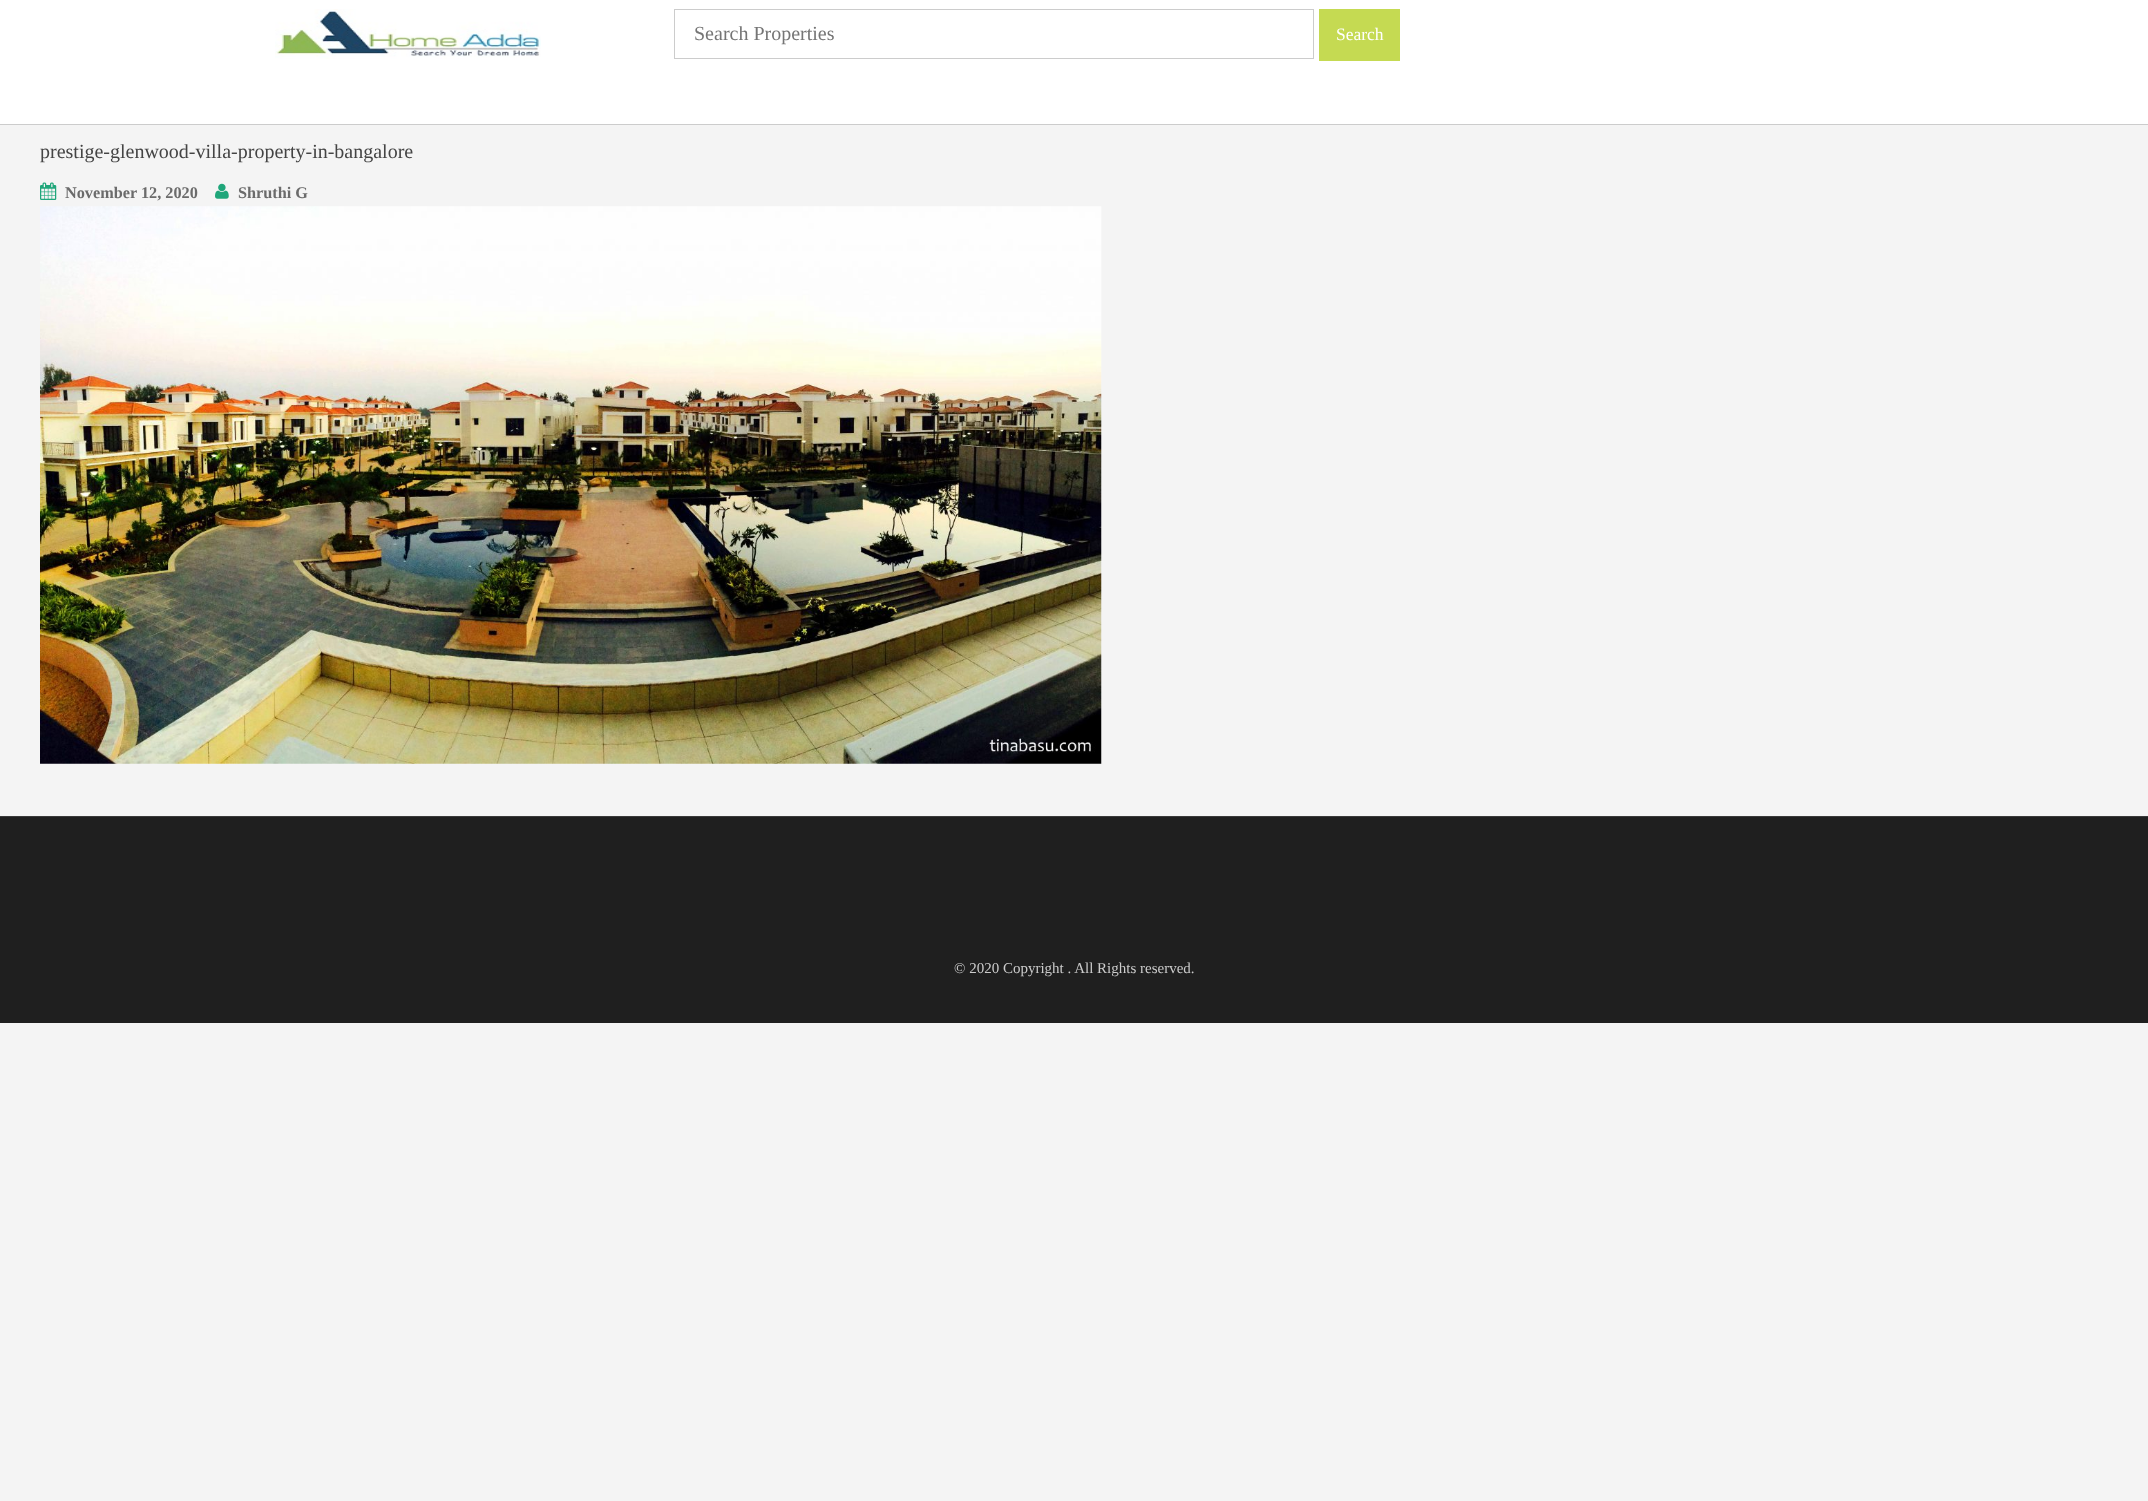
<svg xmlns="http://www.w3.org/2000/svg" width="2148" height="1501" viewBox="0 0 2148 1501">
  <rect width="100%" height="100%" fill="rgb(244,244,244)"/>
  <rect x="0" y="0" width="2148" height="124" fill="rgb(255,255,255)"/>
  <rect x="0" y="124" width="2148" height="1" fill="rgb(204,204,204)"/>
  <image x="275" y="9" width="266" height="50" href="pic1.png"/>
  <rect x="674.5" y="9.5" width="639" height="49" fill="none" stroke="rgb(204,204,204)"/>
  <text x="694" y="40" font-family="Liberation Serif" font-size="20" fill="rgb(117,117,117)">Search Properties</text>
  <rect x="1319" y="9" width="81" height="52" fill="rgb(197,218,82)"/>
  <text x="1336" y="40" font-family="Liberation Serif" font-size="17.5" fill="rgb(255,255,255)">Search</text>
  <text x="40" y="158" font-family="Liberation Serif" font-size="20" fill="rgb(68,68,68)">prestige-glenwood-villa-property-in-bangalore</text>
  <image x="40" y="182" width="17" height="18" href="pic2.png"/>
  <text x="65" y="198" font-family="Liberation Serif" font-size="16.25" font-weight="bold" fill="rgb(107,107,107)">November 12, 2020</text>
  <image x="215" y="183" width="14" height="16" href="pic3.png"/>
  <text x="238" y="198" font-family="Liberation Serif" font-size="16.25" font-weight="bold" fill="rgb(107,107,107)">Shruthi G</text>
  <image x="40" y="206" width="1062" height="558" href="pic4.png"/>
  <rect x="0" y="817" width="2148" height="206" fill="rgb(31,31,31)"/>
  <rect x="0" y="816" width="2148" height="1" fill="rgb(58,58,58)"/>
  <text x="954" y="973" font-family="Liberation Serif" font-size="15" fill="rgb(204,204,204)">© 2020 Copyright . All Rights reserved.</text>
</svg>
